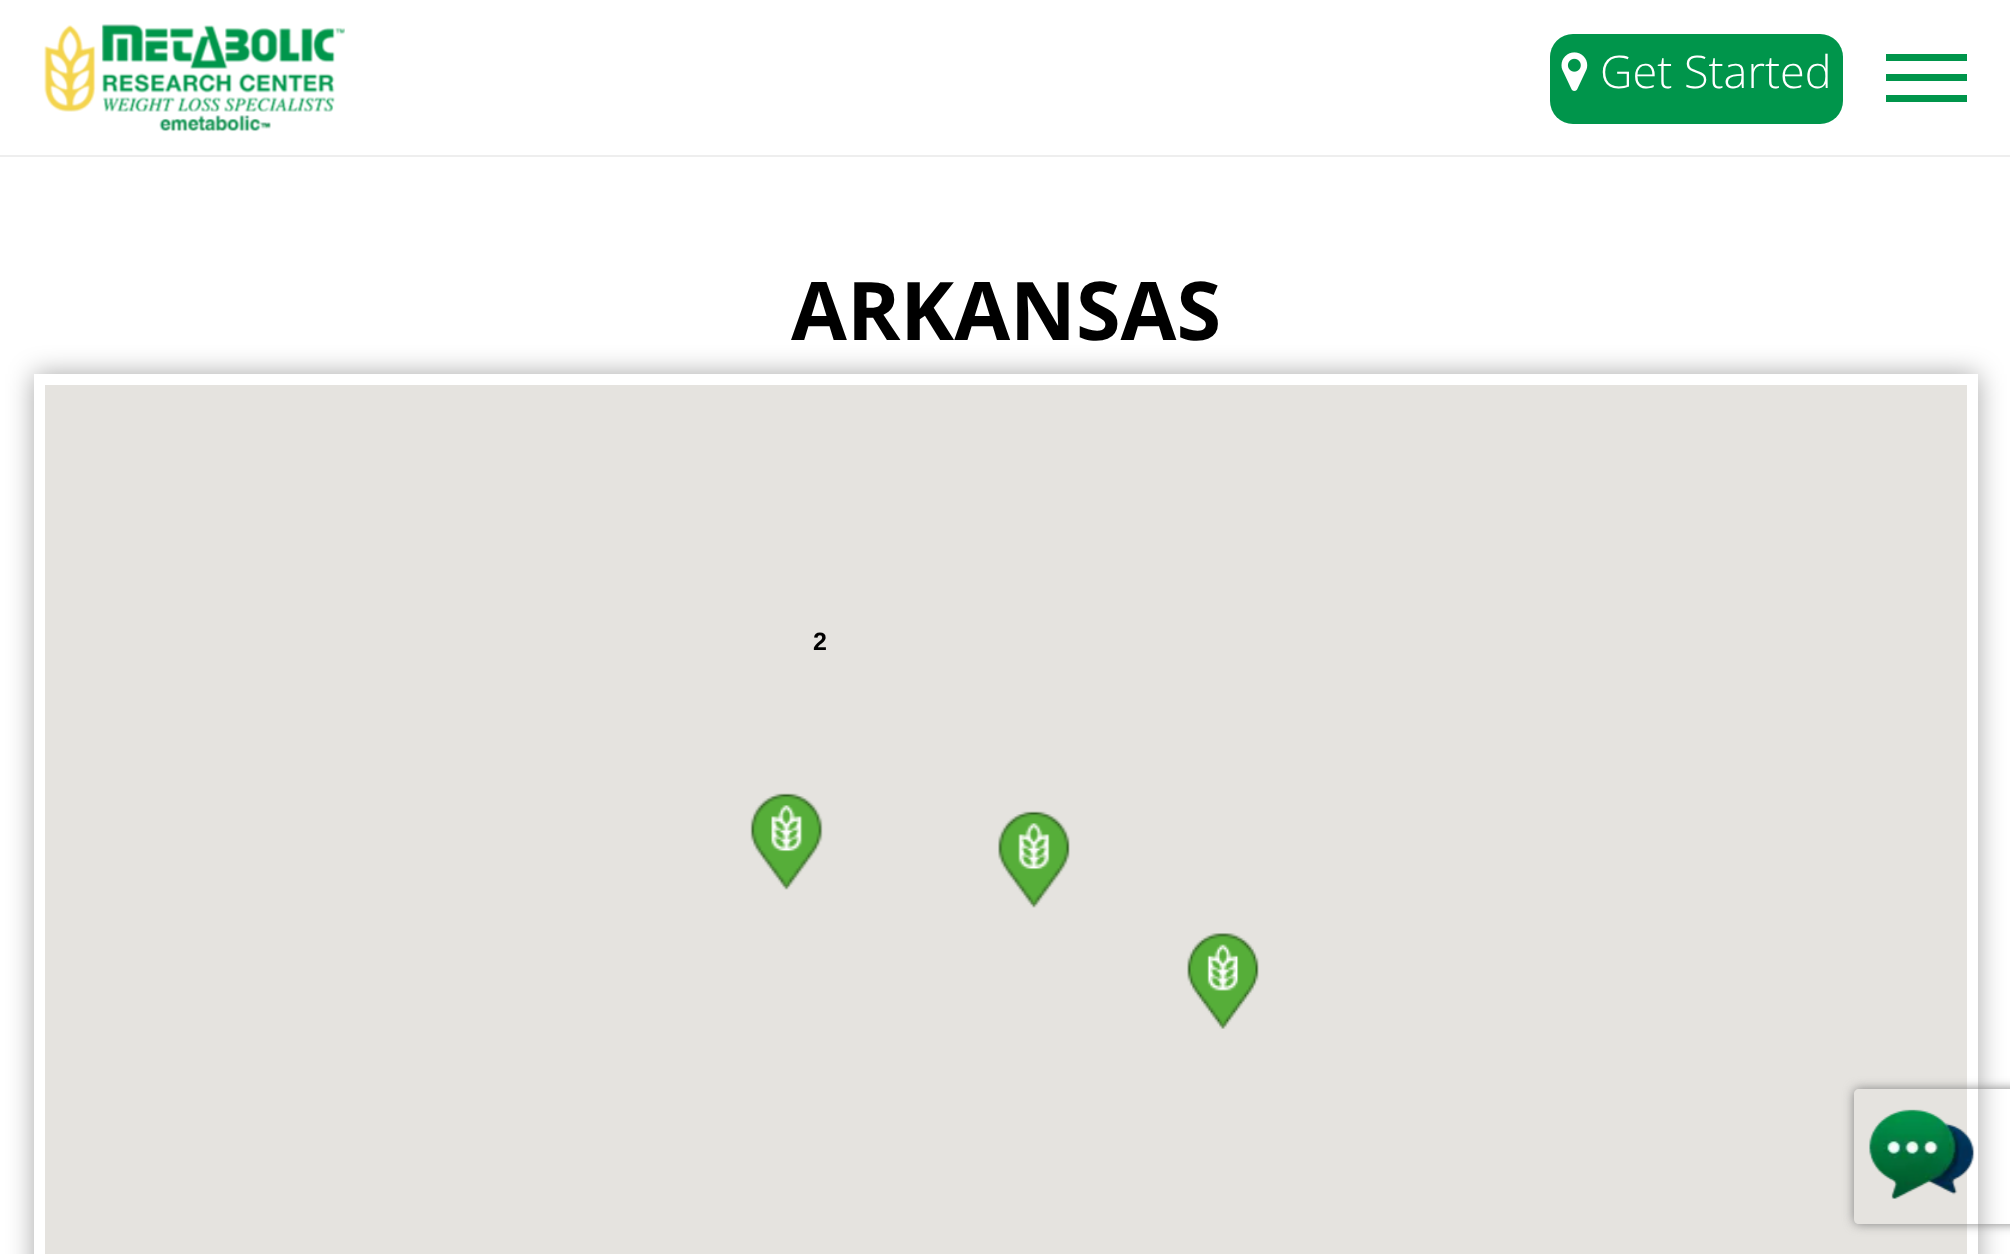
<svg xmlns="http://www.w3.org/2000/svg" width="2010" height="1254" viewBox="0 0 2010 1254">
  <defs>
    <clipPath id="clip1"><path d="M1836 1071H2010V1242H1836ZM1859 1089H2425C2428 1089 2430 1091 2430 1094V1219C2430 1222 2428 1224 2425 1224H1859C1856 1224 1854 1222 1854 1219V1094C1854 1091 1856 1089 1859 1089Z" clip-rule="evenodd"/></clipPath>
  </defs>
  <rect width="100%" height="100%" fill="rgb(255,255,255)"/>
  <rect x="0" y="155" width="2010" height="2" fill="rgb(238,238,238)"/>
  <image x="44" y="24" width="301" height="108" href="pic1.png"/>
  <rect x="1550" y="34" width="293" height="90" rx="23" fill="rgb(0,149,75)"/>
  <image x="1561" y="52" width="27" height="39" href="pic2.png"/>
  <text x="1600" y="88" font-family="Open Sans" font-size="45" font-weight="300" fill="rgb(255,255,255)">Get Started</text>
  <rect x="1886" y="54" width="81" height="7" fill="rgb(0,149,75)"/>
  <rect x="1886" y="74" width="81" height="7" fill="rgb(0,149,75)"/>
  <rect x="1886" y="95" width="81" height="7" fill="rgb(0,149,75)"/>
  <rect x="34" y="374" width="1944" height="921" fill="rgba(0,0,0,0.35)" filter="blur(13.5px)"/>
  <text x="791" y="340" font-family="Open Sans" font-size="81" font-weight="bold" fill="rgb(0,0,0)">ARKANSAS</text>
  <rect x="34" y="374" width="1944" height="880" fill="rgb(255,255,255)"/>
  <rect x="45" y="385" width="1922" height="869" fill="rgb(229,227,223)"/>
  <text x="813" y="650" font-family="Liberation Sans" font-size="25" font-weight="bold" fill="rgb(0,0,0)">2</text>
  <image x="750" y="793" width="73" height="97" href="pic3.png"/>
  <image x="998" y="811" width="72" height="97" href="pic4.png"/>
  <image x="1187" y="933" width="72" height="96" href="pic5.png"/>
  <g clip-path="url(#clip1)">
    <rect x="1854" y="1089" width="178" height="135" rx="5" fill="rgb(128,128,128)" filter="blur(5.5px)"/>
  </g>
  <image x="1869" y="1109" width="106" height="90" href="pic6.png"/>
</svg>
